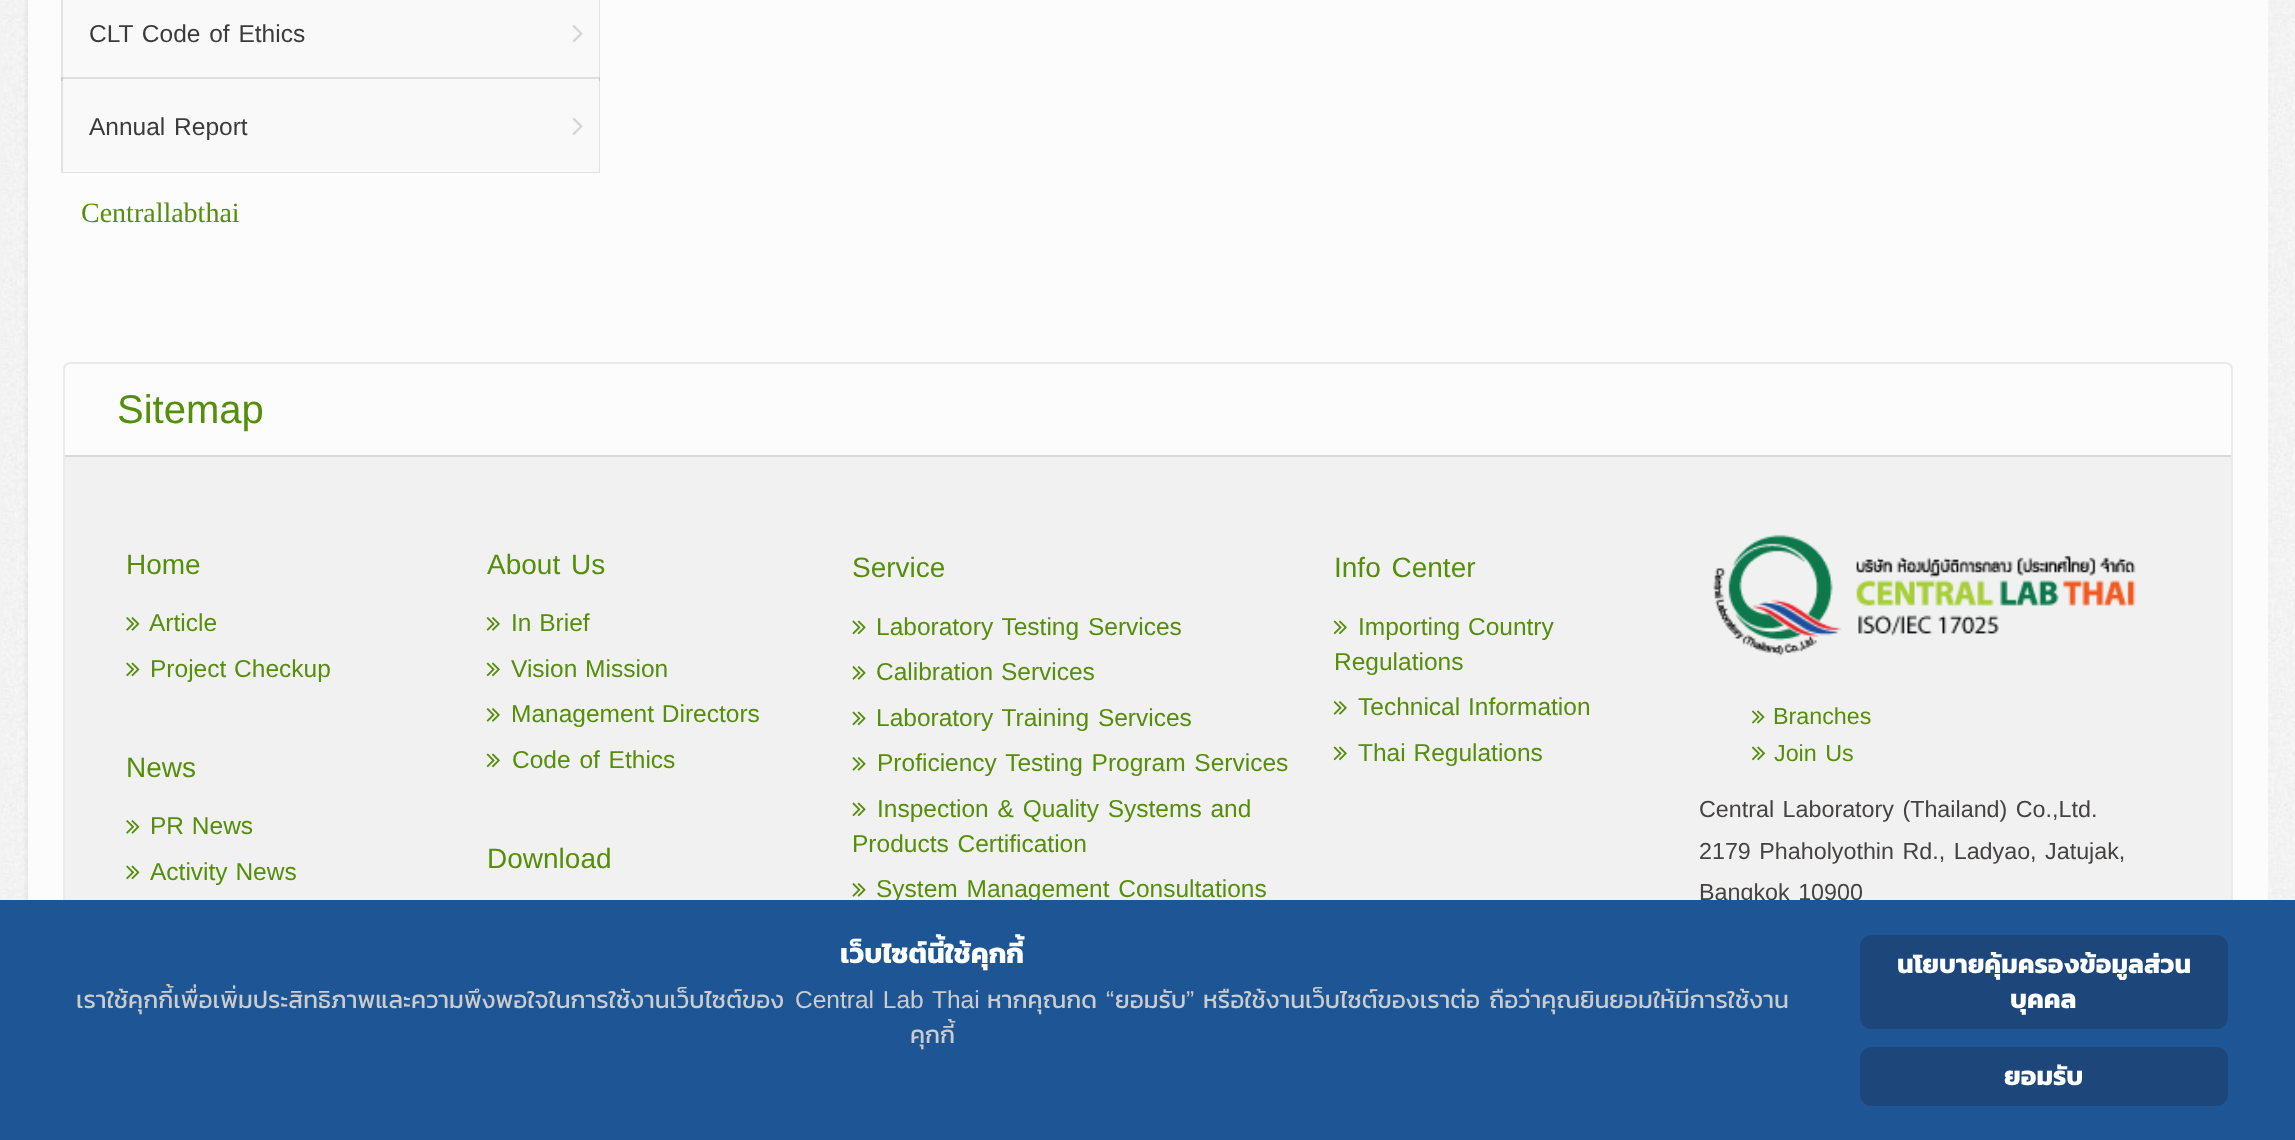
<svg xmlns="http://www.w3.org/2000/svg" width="2295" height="1140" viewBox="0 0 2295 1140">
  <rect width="100%" height="100%" fill="rgb(242,242,242)"/>
  <image x="2" y="0" width="2293" height="900" href="pic1.png"/>
  <rect x="25" y="-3" width="2240" height="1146" fill="rgba(0,0,0,0.04)" filter="blur(1px)"/>
  <rect x="28" y="0" width="2240" height="900" fill="rgb(252,252,252)"/>
  <rect x="62" y="-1" width="537" height="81" fill="none" stroke="rgb(227,227,227)" stroke-width="2"/>
  <rect x="63" y="0" width="536" height="79" fill="rgb(249,249,249)"/>
  <text x="89" y="42" word-spacing="2" font-family="Liberation Sans" font-size="24.5" fill="rgb(59,59,59)">CLT Code of Ethics</text>
  <image x="572" y="25" width="11" height="18" href="pic2.png"/>
  <rect x="62" y="78" width="537" height="94" fill="none" stroke="rgba(0,0,0,0.1)" stroke-width="2"/>
  <rect x="63" y="79" width="536" height="93" fill="rgb(249,249,249)"/>
  <text x="89" y="135" word-spacing="2" font-family="Liberation Sans" font-size="24.5" fill="rgb(59,59,59)">Annual Report</text>
  <image x="572" y="117" width="11" height="18" href="pic3.png"/>
  <text x="81" y="222" font-family="Liberation Serif" font-size="28" fill="rgb(85,142,10)">Centrallabthai</text>
  <path d="M65.5 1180.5C64.5 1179 64 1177.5 64 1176V369C64 367.5 64.5 366 65.5 365C67 364 68.5 363 70 363H2226C2227.5 363 2229 364 2230.5 365C2231.5 366 2232 367.5 2232 369V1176C2232 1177.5 2231.5 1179 2230.5 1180.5" fill="none" stroke="rgb(233,233,233)" stroke-width="1.8"/>
  <text x="117" y="423" font-family="Liberation Sans" font-size="40" fill="rgb(85,142,10)">Sitemap</text>
  <rect x="65" y="457" width="2166" height="443" fill="rgb(241,241,241)"/>
  <rect x="65" y="455" width="2166" height="2" fill="rgb(217,217,217)"/>
  <text x="126" y="574" font-family="Liberation Sans" font-size="28" fill="rgb(85,142,10)">Home</text>
  <image x="126" y="617" width="14" height="14" href="pic4.png"/>
  <text x="149" y="631" font-family="Liberation Sans" font-size="24.5" fill="rgb(85,142,10)">Article</text>
  <image x="126" y="662" width="14" height="15" href="pic5.png"/>
  <text x="150" y="677" word-spacing="1" font-family="Liberation Sans" font-size="24.5" fill="rgb(85,142,10)">Project Checkup</text>
  <text x="126" y="777" font-family="Liberation Sans" font-size="28" fill="rgb(85,142,10)">News</text>
  <image x="126" y="820" width="14" height="14" href="pic4.png"/>
  <text x="150" y="834" word-spacing="1" font-family="Liberation Sans" font-size="24.5" fill="rgb(85,142,10)">PR News</text>
  <image x="126" y="865" width="14" height="15" href="pic5.png"/>
  <text x="150" y="880" word-spacing="1" font-family="Liberation Sans" font-size="24.5" fill="rgb(85,142,10)">Activity News</text>
  <text x="487" y="574" word-spacing="3" font-family="Liberation Sans" font-size="28" fill="rgb(85,142,10)">About Us</text>
  <image x="486" y="617" width="14" height="14" href="pic6.png"/>
  <text x="511" y="631" word-spacing="1" font-family="Liberation Sans" font-size="24.5" fill="rgb(85,142,10)">In Brief</text>
  <image x="486" y="662" width="14" height="15" href="pic7.png"/>
  <text x="511" y="677" word-spacing="1" font-family="Liberation Sans" font-size="24.5" fill="rgb(85,142,10)">Vision Mission</text>
  <image x="486" y="708" width="14" height="14" href="pic6.png"/>
  <text x="511" y="722" word-spacing="1" font-family="Liberation Sans" font-size="24.5" fill="rgb(85,142,10)">Management Directors</text>
  <image x="486" y="753" width="14" height="15" href="pic7.png"/>
  <text x="512" y="768" word-spacing="2" font-family="Liberation Sans" font-size="24.5" fill="rgb(85,142,10)">Code of Ethics</text>
  <g font-family="Liberation Sans" font-size="28" fill="rgb(85,142,10)">
    <text x="487" y="868">Download</text>
    <text x="852" y="577">Service</text>
  </g>
  <image x="852" y="620" width="14" height="15" href="pic8.png"/>
  <text x="876" y="635" word-spacing="2" font-family="Liberation Sans" font-size="24.5" fill="rgb(85,142,10)">Laboratory Testing Services</text>
  <image x="852" y="666" width="14" height="14" href="pic9.png"/>
  <text x="876" y="680" word-spacing="1" font-family="Liberation Sans" font-size="24.5" fill="rgb(85,142,10)">Calibration Services</text>
  <image x="852" y="711" width="14" height="15" href="pic8.png"/>
  <text x="876" y="726" word-spacing="2" font-family="Liberation Sans" font-size="24.5" fill="rgb(85,142,10)">Laboratory Training Services</text>
  <image x="852" y="757" width="14" height="14" href="pic9.png"/>
  <text x="877" y="771" word-spacing="2" font-family="Liberation Sans" font-size="24.5" fill="rgb(85,142,10)">Proficiency Testing Program Services</text>
  <image x="852" y="802" width="14" height="15" href="pic8.png"/>
  <g font-family="Liberation Sans" font-size="24.5" fill="rgb(85,142,10)">
    <text x="877" y="817" word-spacing="2">Inspection &amp; Quality Systems and</text>
    <text x="852" y="852" word-spacing="2">Products Certification</text>
  </g>
  <image x="852" y="883" width="14" height="14" href="pic9.png"/>
  <text x="876" y="897" word-spacing="2" font-family="Liberation Sans" font-size="24.5" fill="rgb(85,142,10)">System Management Consultations</text>
  <text x="1334" y="577" word-spacing="3" font-family="Liberation Sans" font-size="28" fill="rgb(85,142,10)">Info Center</text>
  <image x="1333" y="620" width="14" height="15" href="pic7.png"/>
  <g font-family="Liberation Sans" font-size="24.5" fill="rgb(85,142,10)">
    <text x="1358" y="635" word-spacing="1">Importing Country</text>
    <text x="1334" y="670">Regulations</text>
  </g>
  <image x="1333" y="701" width="14" height="14" href="pic6.png"/>
  <text x="1358" y="715" word-spacing="1" font-family="Liberation Sans" font-size="24.5" fill="rgb(85,142,10)">Technical Information</text>
  <image x="1333" y="746" width="14" height="15" href="pic7.png"/>
  <text x="1358" y="761" word-spacing="1" font-family="Liberation Sans" font-size="24.5" fill="rgb(85,142,10)">Thai Regulations</text>
  <image x="1713" y="534" width="423" height="123" href="pic10.png"/>
  <image x="1752" y="710" width="13" height="14" href="pic11.png"/>
  <text x="1773" y="724" font-family="Liberation Sans" font-size="23.3" fill="rgb(85,142,10)">Branches</text>
  <image x="1752" y="746" width="14" height="15" href="pic12.png"/>
  <text x="1774" y="761" word-spacing="2" font-family="Liberation Sans" font-size="23.3" fill="rgb(85,142,10)">Join Us</text>
  <g font-family="Liberation Sans" font-size="23.3" fill="rgb(69,66,66)">
    <text>
      <tspan x="1699" y="817" word-spacing="2">Central Laboratory (Thailand) Co.,Ltd.</tspan>
      <tspan x="1699" y="859" word-spacing="2">2179 Phaholyothin Rd., Ladyao, Jatujak,</tspan>
      <tspan x="1699" y="900" word-spacing="2">Bangkok 10900</tspan>
    </text>
  </g>
  <rect x="0" y="900" width="2295" height="240" fill="rgb(30,86,149)"/>
  <text x="840" y="963" font-family="Kanit" font-size="28" font-weight="bold" fill="rgb(255,255,255)">เว็บไซต์นี้ใช้คุกกี้</text>
  <text x="76" y="1008" font-family="Kanit" font-size="24.5" fill="rgb(204,204,204)">เราใช้คุกกี้เพื่อเพิ่มประสิทธิภาพและความพึงพอใจในการใช้งานเว็บไซต์ของ</text>
  <text x="795" y="1008" word-spacing="2" font-family="Liberation Sans" font-size="24.5" fill="rgb(204,204,204)">Central Lab Thai</text>
  <text x="987" y="1008" font-family="Kanit" font-size="24.5" fill="rgb(204,204,204)">หากคุณกด</text>
  <text x="1106" y="1008" font-family="Liberation Sans" font-size="24.5" fill="rgb(204,204,204)">“</text>
  <text x="1115" y="1008" font-family="Kanit" font-size="24.5" fill="rgb(204,204,204)">ยอมรับ</text>
  <text x="1186" y="1008" font-family="Liberation Sans" font-size="24.5" fill="rgb(204,204,204)">”</text>
  <g font-family="Kanit" font-size="24.5" fill="rgb(204,204,204)">
    <text x="1203" y="1008">หรือใช้งานเว็บไซต์ของเราต่อ ถือว่าคุณยินยอมให้มีการใช้งาน</text>
    <text x="910" y="1043">คุกกี้</text>
  </g>
  <rect x="1860" y="935" width="368" height="94" rx="12" fill="rgb(29,70,122)"/>
  <g font-family="Kanit" font-size="26.25" font-weight="bold" fill="rgb(255,255,255)">
    <text x="1897" y="973">นโยบายคุ้มครองข้อมูลส่วน</text>
    <text x="2010" y="1008">บุคคล</text>
  </g>
  <rect x="1860" y="1047" width="368" height="59" rx="12" fill="rgb(29,70,122)"/>
  <text x="2004" y="1085" font-family="Kanit" font-size="26.25" font-weight="bold" fill="rgb(255,255,255)">ยอมรับ</text>
</svg>
